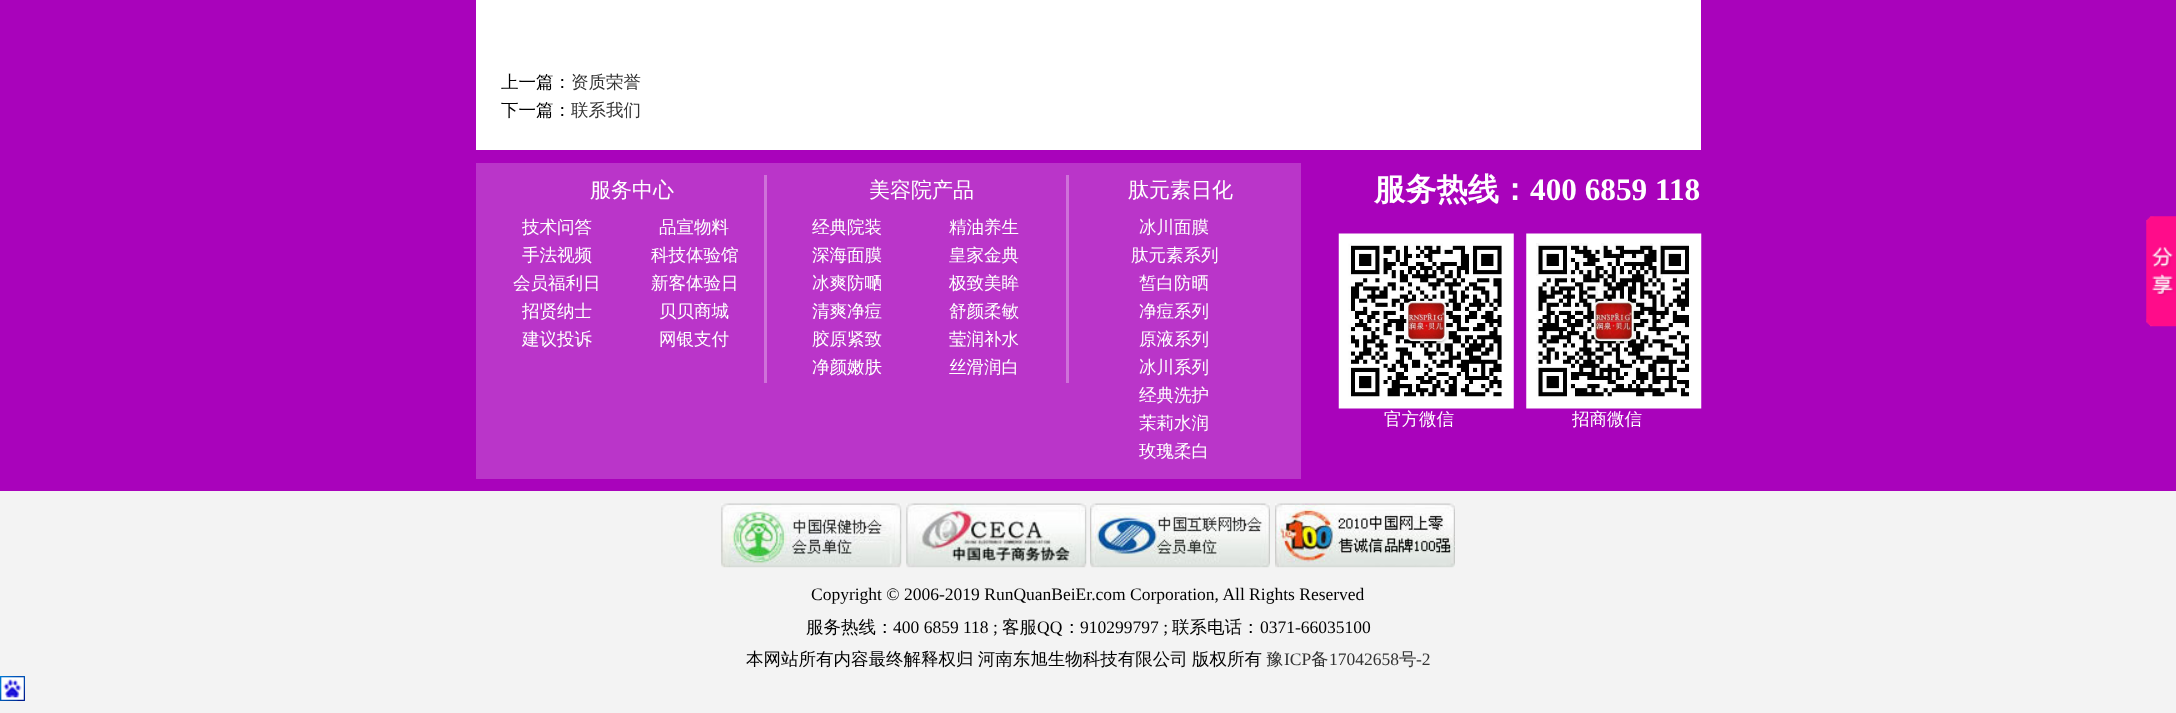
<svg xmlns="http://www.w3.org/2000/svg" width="2176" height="713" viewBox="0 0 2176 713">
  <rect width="100%" height="100%" fill="rgb(169,3,187)"/>
  <rect x="476" y="0" width="1225" height="150" fill="rgb(255,255,255)"/>
  <text x="501" y="88" font-family="WenQuanYi Zen Hei" font-size="17.5" font-weight="500" fill="rgb(0,0,0)">上一篇：</text>
  <text x="571" y="88" font-family="WenQuanYi Zen Hei" font-size="17.5" font-weight="500" fill="rgb(51,51,51)">资质荣誉</text>
  <text x="501" y="116" font-family="WenQuanYi Zen Hei" font-size="17.5" font-weight="500" fill="rgb(0,0,0)">下一篇：</text>
  <text x="571" y="116" font-family="WenQuanYi Zen Hei" font-size="17.5" font-weight="500" fill="rgb(51,51,51)">联系我们</text>
  <rect x="476" y="163" width="825" height="316" fill="rgb(186,53,201)"/>
  <text x="590" y="197" font-family="WenQuanYi Zen Hei" font-size="21" font-weight="500" fill="rgb(255,255,255)">服务中心</text>
  <g font-family="WenQuanYi Zen Hei" font-size="17.5" font-weight="500" fill="rgb(255,255,255)">
    <text x="522" y="233">技术问答</text>
    <text x="659" y="233">品宣物料</text>
    <text x="522" y="261">手法视频</text>
    <text x="651" y="261">科技体验馆</text>
    <text x="513" y="289">会员福利日</text>
    <text x="651" y="289">新客体验日</text>
    <text x="522" y="317">招贤纳士</text>
    <text x="659" y="317">贝贝商城</text>
    <text x="522" y="345">建议投诉</text>
    <text x="659" y="345">网银支付</text>
  </g>
  <rect x="1066" y="175" width="3" height="208" fill="rgb(207,114,217)"/>
  <rect x="764" y="175" width="3" height="208" fill="rgb(207,114,217)"/>
  <text x="869" y="197" font-family="WenQuanYi Zen Hei" font-size="21" font-weight="500" fill="rgb(255,255,255)">美容院产品</text>
  <g font-family="WenQuanYi Zen Hei" font-size="17.5" font-weight="500" fill="rgb(255,255,255)">
    <text x="812" y="233">经典院装</text>
    <text x="949" y="233">精油养生</text>
    <text x="812" y="261">深海面膜</text>
    <text x="949" y="261">皇家金典</text>
    <text x="812" y="289">冰爽防嗮</text>
    <text x="949" y="289">极致美眸</text>
    <text x="812" y="317">清爽净痘</text>
    <text x="949" y="317">舒颜柔敏</text>
    <text x="812" y="345">胶原紧致</text>
    <text x="949" y="345">莹润补水</text>
    <text x="812" y="373">净颜嫩肤</text>
    <text x="949" y="373">丝滑润白</text>
  </g>
  <text x="1128" y="197" font-family="WenQuanYi Zen Hei" font-size="21" font-weight="500" fill="rgb(255,255,255)">肽元素日化</text>
  <g font-family="WenQuanYi Zen Hei" font-size="17.5" font-weight="500" fill="rgb(255,255,255)">
    <text x="1139" y="233">冰川面膜</text>
    <text x="1131" y="261">肽元素系列</text>
    <text>
      <tspan x="1139" y="289">皙白防晒</tspan>
      <tspan x="1139" y="317">净痘系列</tspan>
      <tspan x="1139" y="345">原液系列</tspan>
      <tspan x="1139" y="373">冰川系列</tspan>
      <tspan x="1139" y="401">经典洗护</tspan>
      <tspan x="1139" y="429">茉莉水润</tspan>
      <tspan x="1139" y="457">玫瑰柔白</tspan>
    </text>
  </g>
  <text x="1374" y="200" font-family="WenQuanYi Zen Hei" font-size="31.25" font-weight="bold" fill="rgb(255,255,255)">服务热线：</text>
  <text x="1530" y="200" font-family="Liberation Serif" font-size="31.25" font-weight="bold" fill="rgb(255,255,255)">400 6859 118</text>
  <image x="1338" y="233" width="176" height="176" href="pic1.png"/>
  <text x="1384" y="425" font-family="WenQuanYi Zen Hei" font-size="17.5" font-weight="500" fill="rgb(255,255,255)">官方微信</text>
  <image x="1526" y="233" width="176" height="176" href="pic2.png"/>
  <text x="1572" y="425" font-family="WenQuanYi Zen Hei" font-size="17.5" font-weight="500" fill="rgb(255,255,255)">招商微信</text>
  <image x="2146" y="216" width="30" height="111" href="pic3.png"/>
  <rect x="0" y="491" width="2176" height="222" fill="rgb(243,243,243)"/>
  <image x="721" y="503" width="181" height="65" href="pic4.png"/>
  <image x="906" y="503" width="181" height="65" href="pic5.png"/>
  <image x="1090" y="503" width="180" height="65" href="pic6.png"/>
  <image x="1275" y="503" width="180" height="65" href="pic7.png"/>
  <text x="811" y="600" font-family="Liberation Serif" font-size="17.5" fill="rgb(0,0,0)">Copyright © 2006-2019 RunQuanBeiEr.com Corporation, All Rights Reserved</text>
  <text x="806" y="633" font-family="WenQuanYi Zen Hei" font-size="17.5" font-weight="500" fill="rgb(0,0,0)">服务热线：</text>
  <text x="893" y="633" font-family="Liberation Serif" font-size="17.5" fill="rgb(0,0,0)">400 6859 118 ;</text>
  <text x="1002" y="633" font-family="WenQuanYi Zen Hei" font-size="17.5" font-weight="500" fill="rgb(0,0,0)">客服</text>
  <text x="1037" y="633" font-family="Liberation Serif" font-size="17.5" fill="rgb(0,0,0)">QQ</text>
  <text x="1063" y="633" font-family="WenQuanYi Zen Hei" font-size="17.5" font-weight="500" fill="rgb(0,0,0)">：</text>
  <text x="1080" y="633" font-family="Liberation Serif" font-size="17.5" fill="rgb(0,0,0)">910299797 ;</text>
  <text x="1172" y="633" font-family="WenQuanYi Zen Hei" font-size="17.5" font-weight="500" fill="rgb(0,0,0)">联系电话：</text>
  <text x="1260" y="633" font-family="Liberation Serif" font-size="17.5" fill="rgb(0,0,0)">0371-66035100</text>
  <text x="746" y="665" word-spacing="-1" font-family="WenQuanYi Zen Hei" font-size="17.5" font-weight="500" fill="rgb(0,0,0)">本网站所有内容最终解释权归 河南东旭生物科技有限公司 版权所有</text>
  <text x="1266" y="665" font-family="WenQuanYi Zen Hei" font-size="17.5" font-weight="500" fill="rgb(51,51,51)">豫</text>
  <text x="1284" y="665" font-family="Liberation Serif" font-size="17.5" fill="rgb(51,51,51)">ICP</text>
  <text x="1311" y="665" font-family="WenQuanYi Zen Hei" font-size="17.5" font-weight="500" fill="rgb(51,51,51)">备</text>
  <text x="1329" y="665" font-family="Liberation Serif" font-size="17.5" fill="rgb(51,51,51)">17042658</text>
  <text x="1399" y="665" font-family="WenQuanYi Zen Hei" font-size="17.5" font-weight="500" fill="rgb(51,51,51)">号</text>
  <text x="1416" y="665" font-family="Liberation Serif" font-size="17.5" fill="rgb(51,51,51)">-2</text>
  <image x="0" y="676" width="25" height="25" href="pic8.png"/>
</svg>
